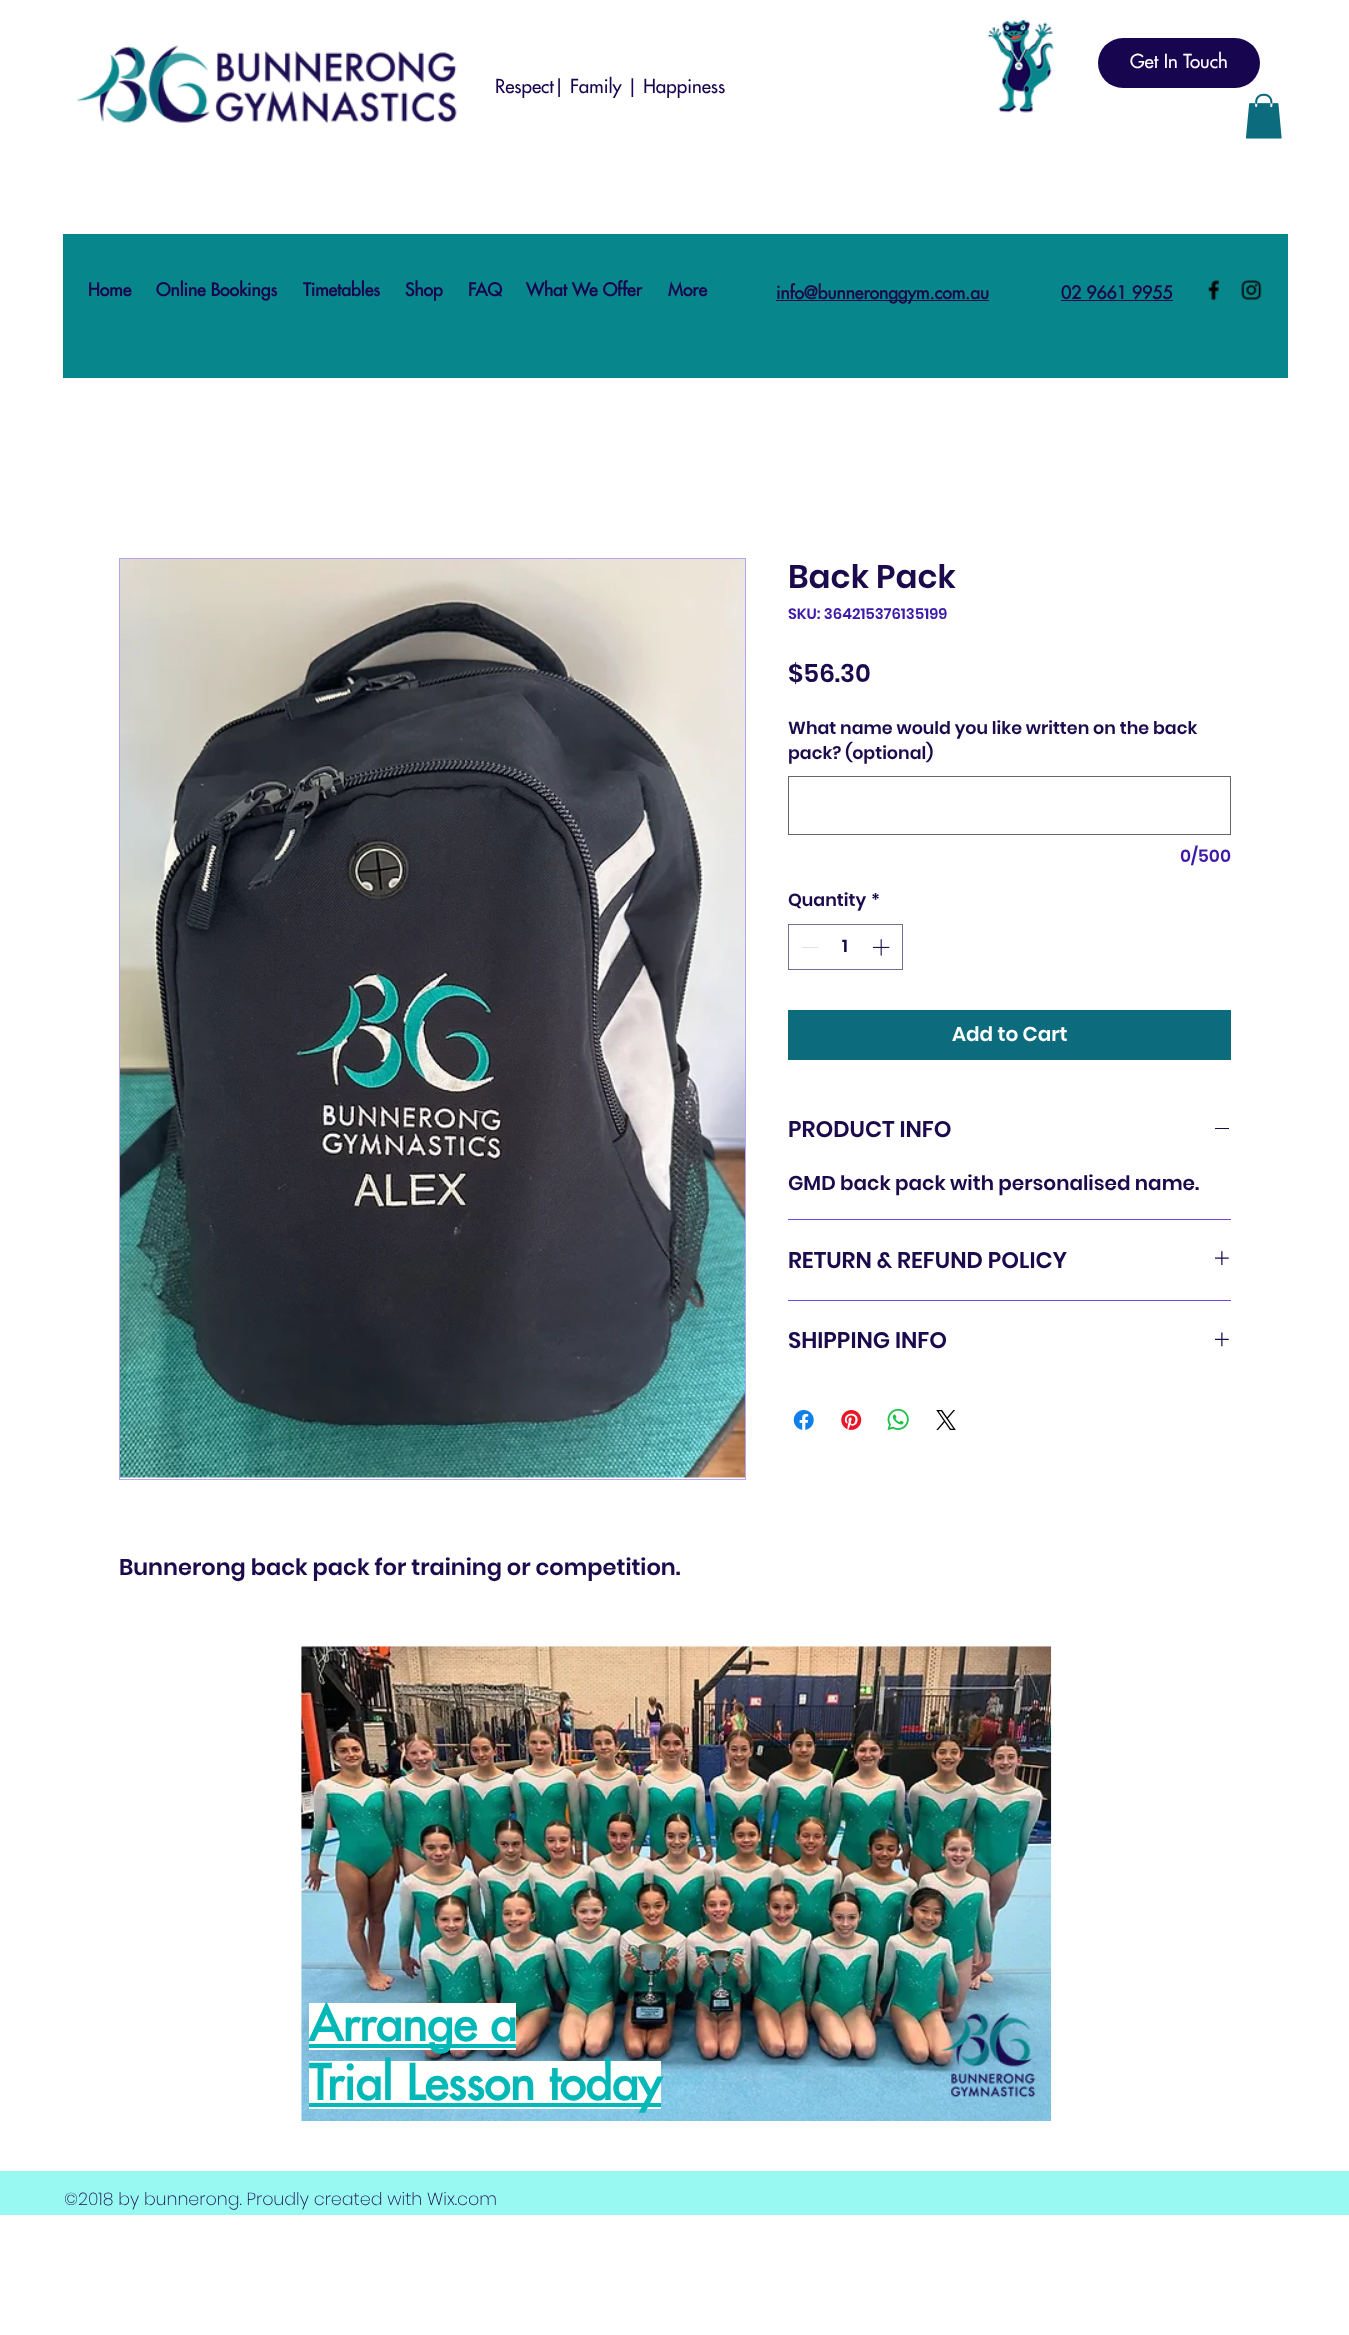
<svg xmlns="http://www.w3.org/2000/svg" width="1349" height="2335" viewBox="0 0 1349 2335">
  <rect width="100%" height="100%" fill="rgb(255,255,255)"/>
  <image x="987" y="19" width="67" height="94" href="pic1.png"/>
  <rect x="1098" y="38" width="162" height="50" rx="25" fill="rgb(24,5,80)"/>
  <text x="1130" y="68" font-family="Futura" font-size="18.75" font-weight="500" fill="rgb(255,255,255)">Get In Touch</text>
  <image x="76" y="45" width="381" height="78" href="pic2.png"/>
  <text x="495" y="93" font-family="Futura" font-size="18.75" font-weight="500" fill="rgb(24,5,80)">Respect| Family | Happiness</text>
  <image x="1245" y="93" width="37" height="46" href="pic3.png"/>
  <rect x="63" y="234" width="1225" height="144" fill="rgb(7,135,139)"/>
  <g font-family="Futura" font-size="17.5" font-weight="bold" fill="rgb(24,5,80)">
    <text x="88" y="296">Home</text>
    <text x="156" y="296">Online Bookings</text>
    <text x="303" y="296">Timetables</text>
    <text x="405" y="296">Shop</text>
    <text x="468" y="296">FAQ</text>
    <text x="526" y="296">What We Offer</text>
    <text x="668" y="296">More</text>
  </g>
  <rect x="776" y="300" width="213" height="1" fill="rgb(28,11,76)"/>
  <g font-family="Futura" font-size="17.5" font-weight="bold" fill="rgb(28,11,76)">
    <text x="776" y="299">info@bunneronggym.com.au</text>
    <text x="1061" y="299">02 9661 9955</text>
  </g>
  <rect x="1061" y="300" width="112" height="1" fill="rgb(28,11,76)"/>
  <image x="1208" y="280" width="12" height="21" href="pic4.png"/>
  <image x="1241" y="280" width="21" height="21" href="pic5.png"/>
  <text x="788" y="588" font-family="Poppins" font-size="32.5" font-weight="600" fill="rgb(28,11,76)">Back Pack</text>
  <text x="788" y="619" font-family="Poppins" font-size="15" font-weight="600" fill="rgb(62,24,168)">SKU: 364215376135199</text>
  <text x="788" y="682" font-family="Poppins" font-size="25" font-weight="600" fill="rgb(28,11,76)">$56.30</text>
  <g font-family="Poppins" font-size="17.5" font-weight="600" fill="rgb(28,11,76)">
    <text>
      <tspan x="788" y="734">What name would you like written on the back</tspan>
      <tspan x="788" y="759">pack? (optional)</tspan>
    </text>
  </g>
  <rect x="788.5" y="776.5" width="442" height="58" fill="none" stroke="rgb(102,102,102)"/>
  <text x="1180" y="862" font-family="Poppins" font-size="17.5" font-weight="600" fill="rgb(62,24,168)">0/500</text>
  <g font-family="Poppins" font-size="17.5" font-weight="600" fill="rgb(28,11,76)">
    <text x="788" y="906">Quantity</text>
    <text x="871" y="906">*</text>
  </g>
  <rect x="788.5" y="924.5" width="114" height="45" fill="none" stroke="rgb(119,109,148)"/>
  <rect x="802" y="947" width="16" height="1" fill="rgb(227,227,227)"/>
  <text x="842" y="952" font-family="Poppins" font-size="17.5" font-weight="600" fill="rgb(28,11,76)">1</text>
  <image x="872" y="939" width="18" height="17" href="pic6.png"/>
  <rect x="788" y="1010" width="443" height="50" fill="rgb(12,108,125)"/>
  <text x="952" y="1041" font-family="Poppins" font-size="20" font-weight="600" fill="rgb(255,255,255)">Add to Cart</text>
  <rect x="788" y="1219" width="443" height="1" fill="rgb(112,70,228)"/>
  <text x="788" y="1137" font-family="Poppins" font-size="22.5" font-weight="600" fill="rgb(28,11,76)">PRODUCT INFO</text>
  <rect x="1215" y="1128" width="14" height="1" fill="rgb(28,11,76)"/>
  <text x="788" y="1190" font-family="Poppins" font-size="20" font-weight="600" fill="rgb(28,11,76)">GMD back pack with personalised name.</text>
  <rect x="788" y="1300" width="443" height="1" fill="rgb(112,70,228)"/>
  <text x="788" y="1268" font-family="Poppins" font-size="22.5" font-weight="600" fill="rgb(28,11,76)">RETURN &amp; REFUND POLICY</text>
  <image x="1215" y="1251" width="14" height="14" href="pic7.png"/>
  <text x="788" y="1348" font-family="Poppins" font-size="22.5" font-weight="600" fill="rgb(28,11,76)">SHIPPING INFO</text>
  <image x="1215" y="1332" width="14" height="15" href="pic8.png"/>
  <image x="793" y="1410" width="21" height="20" href="pic9.png"/>
  <image x="841" y="1410" width="21" height="20" href="pic10.png"/>
  <image x="887" y="1408" width="22" height="23" href="pic11.png"/>
  <image x="936" y="1410" width="20" height="20" href="pic12.png"/>
  <rect x="119.5" y="558.5" width="626" height="921" fill="none" stroke="rgb(183,163,242)"/>
  <image x="120" y="559" width="625" height="919" href="pic13.png"/>
  <text x="119" y="1575" font-family="Poppins" font-size="22.5" font-weight="600" fill="rgb(28,11,76)">Bunnerong back pack for training or competition.</text>
  <image x="301" y="1646" width="751" height="476" href="pic14.png"/>
  <rect x="309" y="2003" width="207" height="47" fill="rgb(255,255,254)"/>
  <rect x="309" y="2044" width="207" height="4" fill="rgb(4,184,184)"/>
  <text x="309" y="2041" font-family="Futura" font-size="47.5" font-weight="bold" fill="rgb(4,184,184)">Arrange a</text>
  <rect x="309" y="2061" width="352" height="48" fill="rgb(255,255,254)"/>
  <rect x="309" y="2103" width="352" height="4" fill="rgb(4,184,184)"/>
  <text x="309" y="2100" font-family="Futura" font-size="47.5" font-weight="bold" fill="rgb(4,184,184)">Trial Lesson today</text>
  <image x="940" y="2012" width="96" height="86" href="pic15.png"/>
  <rect x="0" y="2171" width="1349" height="44" fill="rgb(152,248,242)"/>
  <text x="64" y="2205" font-family="Poppins" font-size="17.5" font-weight="200" fill="rgb(28,11,76)">©2018 by bunnerong. Proudly created with Wix.com</text>
</svg>
